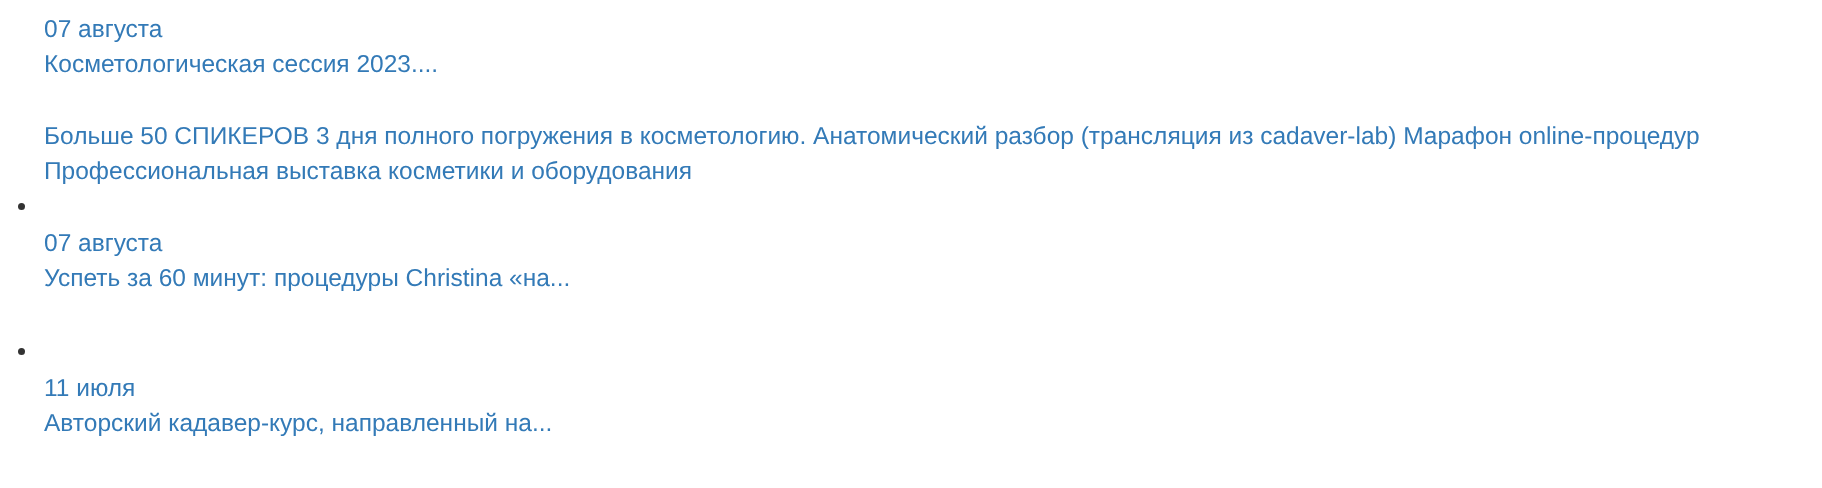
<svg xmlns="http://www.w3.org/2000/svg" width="1822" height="488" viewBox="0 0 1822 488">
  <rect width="100%" height="100%" fill="rgb(255,255,255)"/>
  <g font-family="Liberation Sans" font-size="24.5" fill="rgb(51,122,183)">
    <text>
      <tspan x="44" y="37">07 августа</tspan>
      <tspan x="44" y="72">Косметологическая сессия 2023....</tspan>
    </text>
    <text>
      <tspan x="44" y="144">Больше 50 СПИКЕРОВ 3 дня полного погружения в косметологию. Анатомический разбор (трансляция из cadaver-lab) Марафон online-процедур</tspan>
      <tspan x="44" y="179">Профессиональная выставка косметики и оборудования</tspan>
    </text>
  </g>
  <circle cx="21.5" cy="206.5" r="3.5" fill="rgb(51,51,51)"/>
  <g font-family="Liberation Sans" font-size="24.5" fill="rgb(51,122,183)">
    <text>
      <tspan x="44" y="251">07 августа</tspan>
      <tspan x="44" y="286">Успеть за 60 минут: процедуры Christina «на...</tspan>
    </text>
  </g>
  <circle cx="21.5" cy="351.5" r="3.5" fill="rgb(51,51,51)"/>
  <g font-family="Liberation Sans" font-size="24.5" fill="rgb(51,122,183)">
    <text>
      <tspan x="44" y="396">11 июля</tspan>
      <tspan x="44" y="431">Авторский кадавер-курс, направленный на...</tspan>
    </text>
  </g>
</svg>
